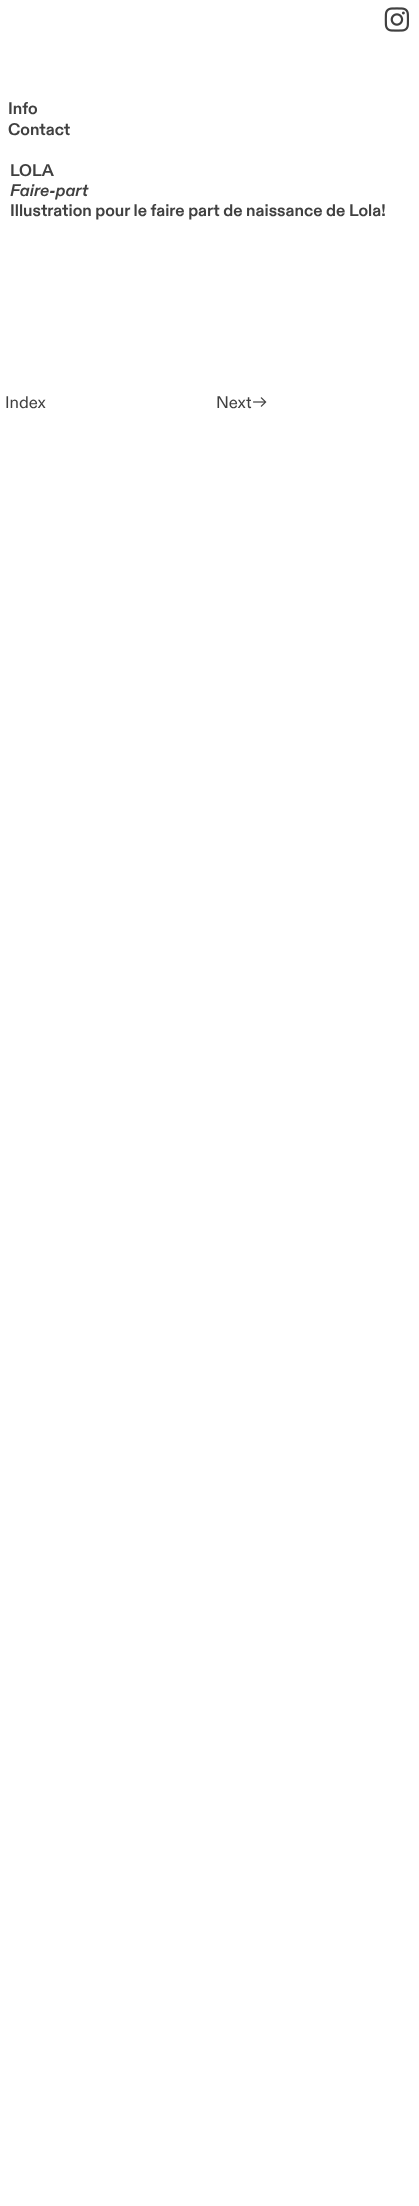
<svg xmlns="http://www.w3.org/2000/svg" width="419" height="2206" viewBox="0 0 419 2206">
  <rect width="100%" height="100%" fill="rgb(255,255,255)"/>
  <image x="384" y="7" width="25" height="25" href="pic1.png"/>
  <g font-family="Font" font-size="16.9" font-weight="bold" fill="rgb(64,64,64)">
    <text>
      <tspan x="8" y="114">Info</tspan>
      <tspan x="8" y="135">Contact</tspan>
    </text>
    <text x="10" y="176">LOLA</text>
  </g>
  <text x="10" y="196" font-family="Font" font-size="16.9" font-weight="bold" font-style="italic" fill="rgb(64,64,64)">Faire-part</text>
  <text x="10" y="216" font-family="Font" font-size="16.9" font-weight="bold" fill="rgb(64,64,64)">Illustration pour le faire part de naissance de Lola!</text>
  <g font-family="Font" font-size="16.9" fill="rgb(64,64,64)">
    <text x="5" y="408">Index</text>
    <text x="216" y="408">Next</text>
  </g>
  <image x="253" y="397" width="14" height="10" href="pic2.png"/>
</svg>
